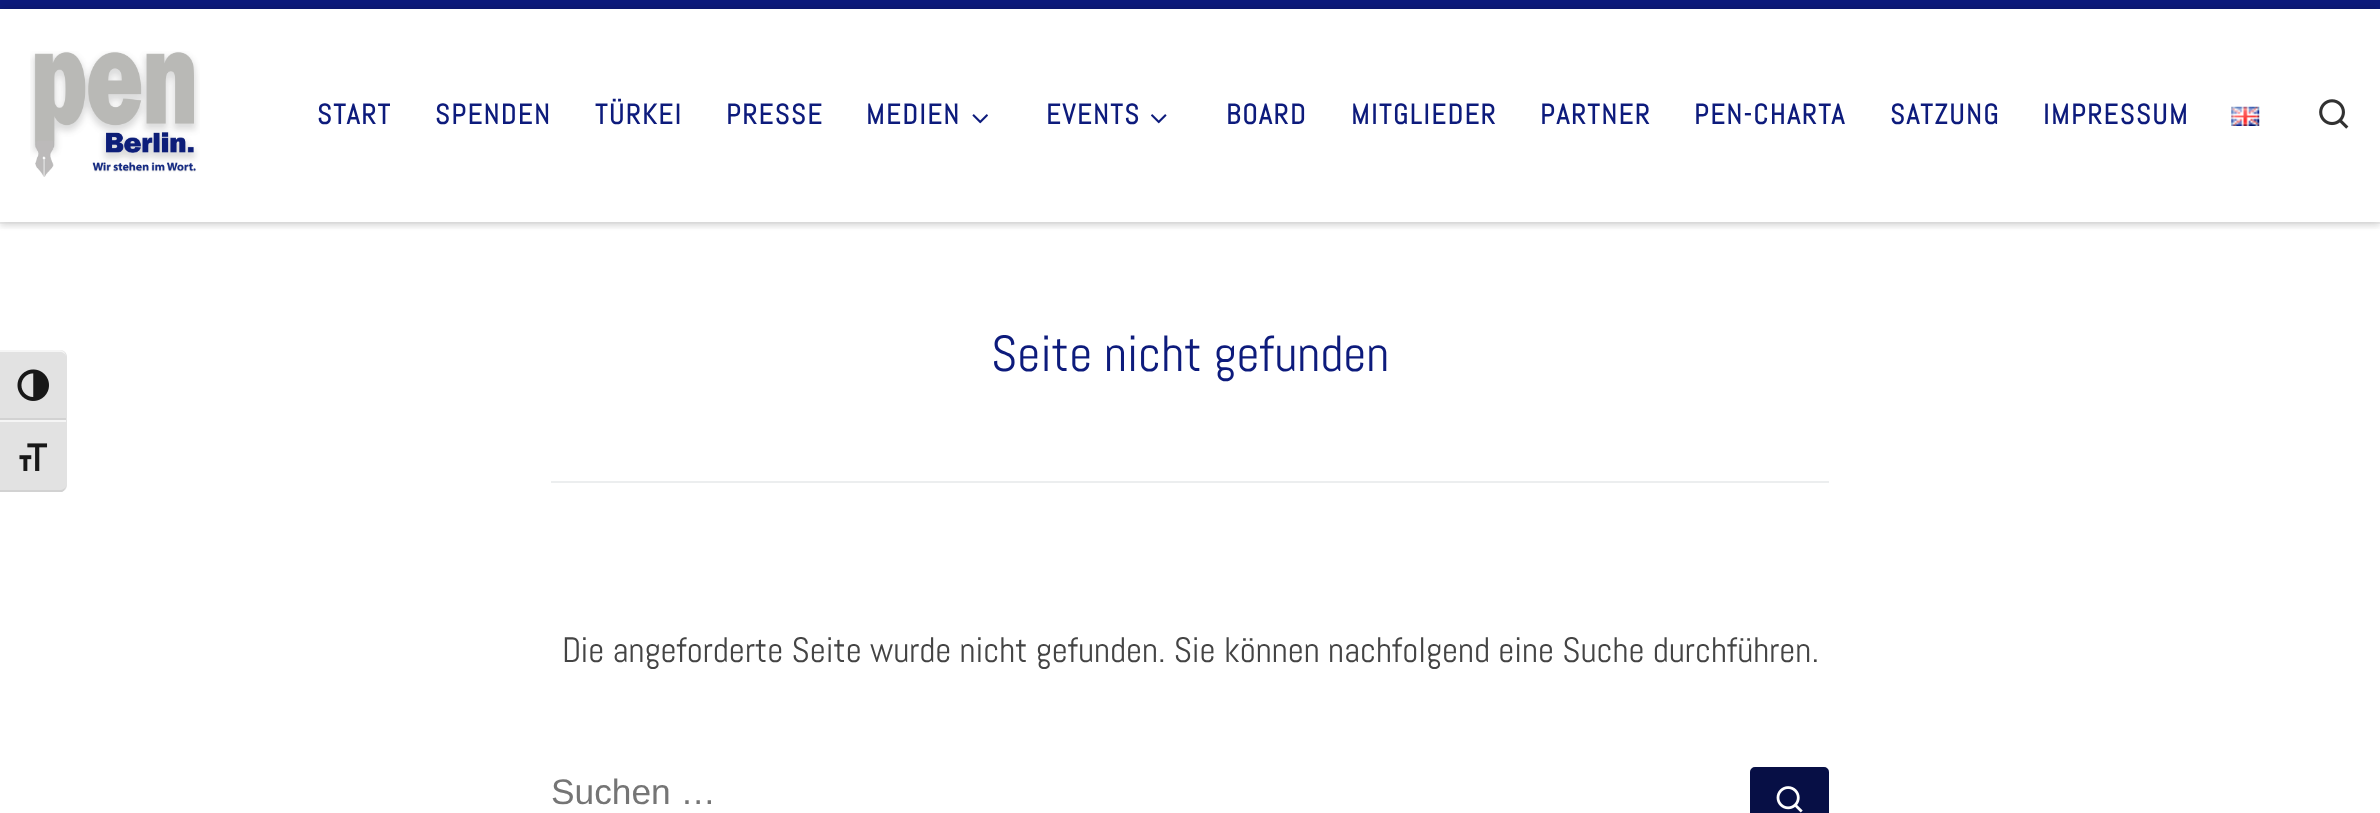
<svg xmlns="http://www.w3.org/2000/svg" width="2380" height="813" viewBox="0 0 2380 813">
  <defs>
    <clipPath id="clip1"><rect x="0" y="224" width="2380" height="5"/></clipPath>
    <clipPath id="clip2"><path d="M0 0H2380V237H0ZM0 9H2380V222H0Z" clip-rule="evenodd"/></clipPath>
  </defs>
  <rect width="100%" height="100%" fill="rgb(255,255,255)"/>
  <path d="M0 350H60C64 350 67 353 67 357V420H0Z" fill="rgb(226,226,226)"/>
  <path d="M0 350V352H60C63 352 66 354 66 357C66 353 63 350 60 350Z" fill="rgb(245,245,245)"/>
  <rect x="0" y="418" width="66" height="2" fill="rgb(210,210,210)"/>
  <image x="17" y="369" width="32" height="32" href="pic1.png"/>
  <path d="M0 420H67V485C67 489 64 492 60 492H0Z" fill="rgb(226,226,226)"/>
  <rect x="0" y="420" width="66" height="2" fill="rgb(245,245,245)"/>
  <path d="M62 492C64 491 66 488 66 485C66 488 63 490 60 490H0V492Z" fill="rgb(210,210,210)"/>
  <image x="19" y="443" width="29" height="28" href="pic2.png"/>
  <g clip-path="url(#clip1)">
    <rect x="0" y="4" width="2380" height="224" fill="rgba(102,102,102,0.08)" filter="blur(2px)"/>
  </g>
  <rect x="0" y="0" width="2380" height="9" fill="rgb(13,27,124)"/>
  <rect x="0" y="222" width="2380" height="2" fill="rgb(239,239,239)"/>
  <g clip-path="url(#clip2)">
    <rect x="0" y="9" width="2380" height="213" fill="rgba(0,0,0,0.2)" filter="blur(4.5px)"/>
  </g>
  <image x="30" y="51" width="170" height="126" href="pic3.png"/>
  <g font-family="Abel" font-size="28" font-weight="bold" letter-spacing="1.75" fill="rgb(13,27,124)">
    <text x="317" y="124">START</text>
    <text x="435" y="124">SPENDEN</text>
    <text x="595" y="124">TÜRKEI</text>
    <text x="726" y="124">PRESSE</text>
    <text x="866" y="124">MEDIEN</text>
  </g>
  <image x="972" y="114" width="16" height="10" href="pic4.png"/>
  <text x="1046" y="124" font-family="Abel" font-size="28" font-weight="bold" letter-spacing="1.75" fill="rgb(13,27,124)">EVENTS</text>
  <image x="1151" y="114" width="16" height="10" href="pic5.png"/>
  <g font-family="Abel" font-size="28" font-weight="bold" letter-spacing="1.75" fill="rgb(13,27,124)">
    <text x="1226" y="124">BOARD</text>
    <text x="1351" y="124">MITGLIEDER</text>
    <text x="1540" y="124">PARTNER</text>
    <text x="1694" y="124">PEN-CHARTA</text>
    <text x="1890" y="124">SATZUNG</text>
    <text x="2043" y="124">IMPRESSUM</text>
  </g>
  <image x="2231" y="106" width="29" height="20" href="pic6.png"/>
  <image x="2319" y="99" width="30" height="30" href="pic7.png"/>
  <text x="991" y="371" font-family="Abel" font-size="50.75" fill="rgb(13,27,124)">Seite nicht gefunden</text>
  <rect x="551" y="481" width="1278" height="2" fill="rgb(236,238,239)"/>
  <text x="562" y="662" font-family="Abel" font-size="35.3" fill="rgb(68,68,68)">Die angeforderte Seite wurde nicht gefunden. Sie können nachfolgend eine Suche durchführen.</text>
  <text x="551" y="804" font-family="Liberation Sans" font-size="35.3" fill="rgb(117,117,117)">Suchen …</text>
  <rect x="1752" y="769" width="75" height="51" rx="3" fill="rgb(7,15,69)" stroke="rgb(7,15,69)" stroke-width="4"/>
  <image x="1776" y="786" width="27" height="27" href="pic8.png"/>
</svg>
